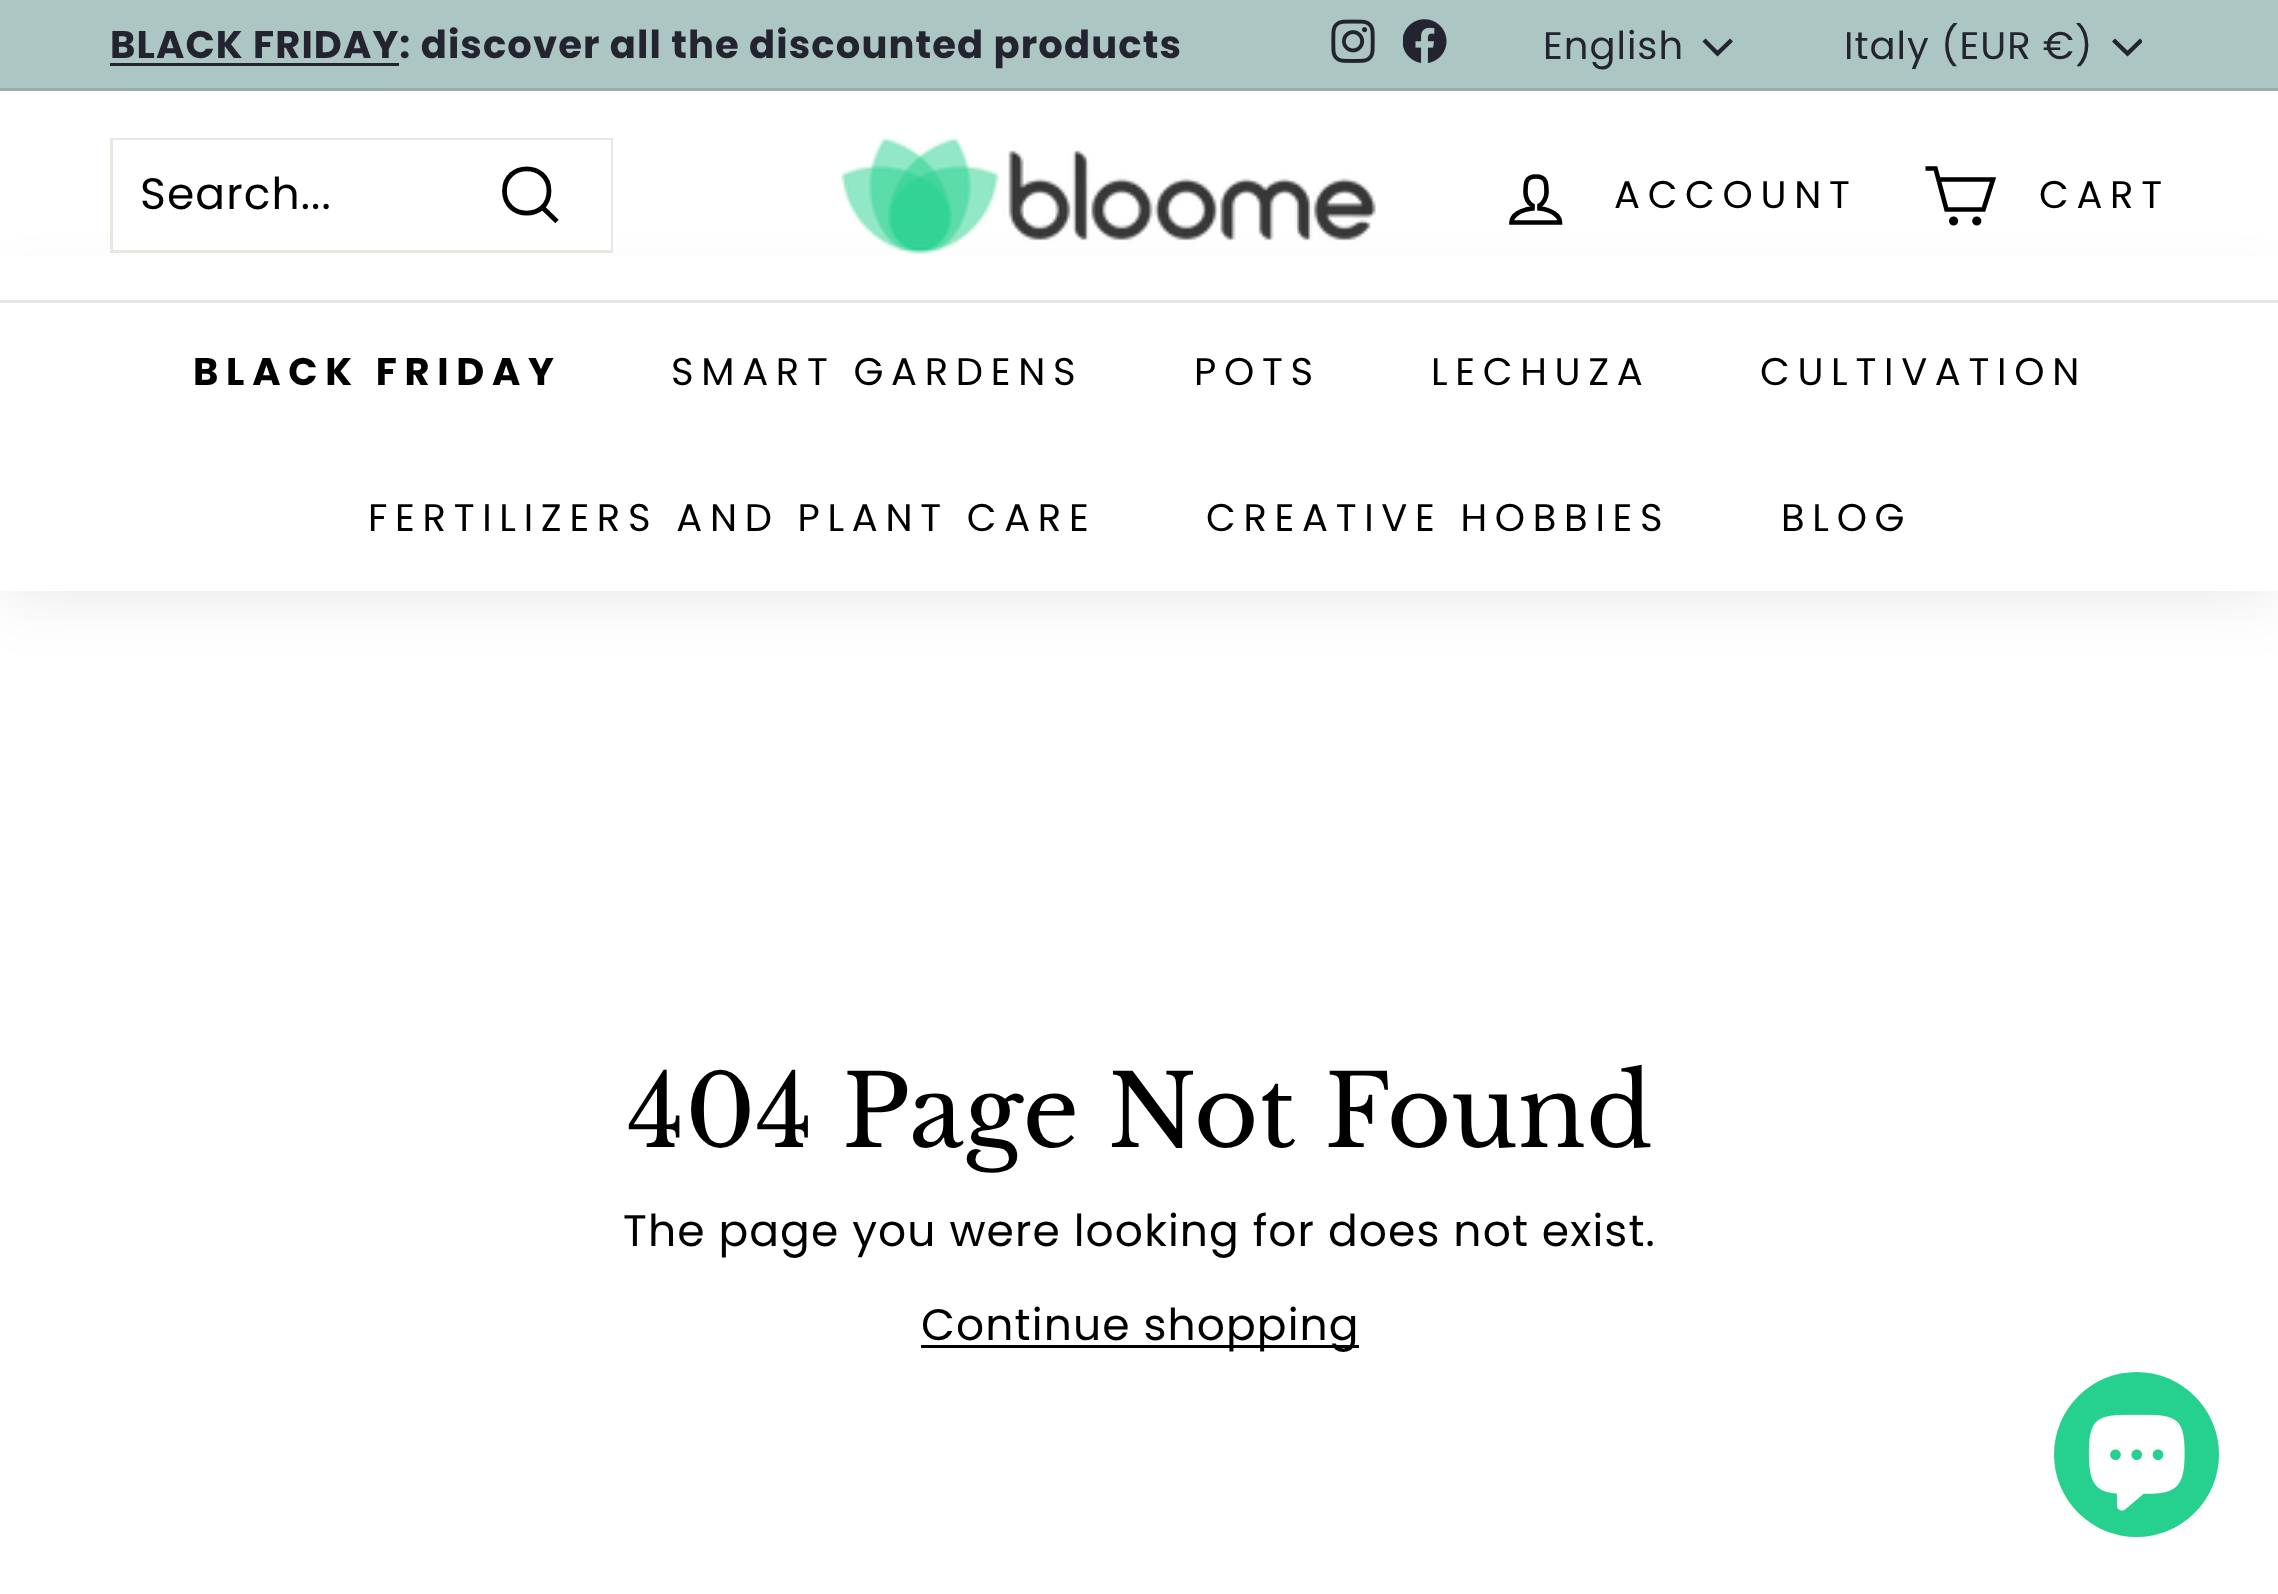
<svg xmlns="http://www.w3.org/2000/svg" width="2278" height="1594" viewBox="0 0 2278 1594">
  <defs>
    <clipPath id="clip1"><rect x="2112" y="33" width="30" height="30"/></clipPath>
  </defs>
  <rect width="100%" height="100%" fill="rgb(255,255,255)"/>
  <rect x="0" y="0" width="2278" height="88" fill="rgb(172,198,195)"/>
  <rect x="110" y="63" width="289" height="3" fill="rgb(36,36,48)"/>
  <text x="110" y="58" font-family="Poppins" font-size="38.5" font-weight="bold" letter-spacing="1.1" fill="rgb(36,36,48)">BLACK FRIDAY: discover all the discounted products</text>
  <image x="1331" y="19" width="44" height="44" href="pic1.png"/>
  <image x="1403" y="19" width="44" height="44" href="pic2.png"/>
  <text x="1543" y="59" font-family="Poppins" font-size="38.5" letter-spacing="1" fill="rgb(36,36,48)">English</text>
  <path d="M1704 40L1717.5 53.5L1731.5 40" fill="none" stroke="rgb(36,36,48)" stroke-width="4.3"/>
  <text x="1844" y="59" font-family="Poppins" font-size="38.5" letter-spacing="1" fill="rgb(36,36,48)">Italy (EUR €)</text>
  <g clip-path="url(#clip1)">
    <path d="M2113.5 40L2127.5 53.5L2141.5 40" fill="none" stroke="rgb(36,36,48)" stroke-width="4.3"/>
  </g>
  <rect x="0" y="88" width="2278" height="3" fill="rgb(152,174,173)"/>
  <rect x="0" y="300" width="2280" height="291" fill="rgba(0,0,0,0.1)" filter="blur(34.5px)"/>
  <rect x="0" y="256" width="2278" height="44" fill="rgb(255,255,255)"/>
  <rect x="111.5" y="139.5" width="500" height="112" fill="none" stroke="rgb(232,232,225)" stroke-width="3"/>
  <rect x="113" y="140" width="498" height="110" fill="rgb(255,255,255)"/>
  <text x="140" y="209" font-family="Poppins" font-size="44" letter-spacing="1.1" fill="rgb(0,0,0)">Search...</text>
  <path d="M549 191C549 220.5 504.5 220.5 504.5 191C504.5 161.5 549 161.5 549 191ZM557 221.5L542.5 207.5" fill="none" stroke="rgb(0,0,0)" stroke-width="4.8"/>
  <image x="840" y="137" width="536" height="117" href="pic3.png"/>
  <path d="M1539.5 208.5V205.5C1543 203.5 1546.5 198 1546.5 192.5C1546.5 183.5 1546.5 176.5 1536 176.5C1525.5 176.5 1525.5 183.5 1525.5 192.5C1525.5 198 1528.5 203.5 1532.5 205.5V208.5C1520.5 209.5 1511.5 215.5 1511.5 222.5H1560C1560 215.5 1551 209.5 1539.5 208.5Z" fill="none" stroke="rgb(0,0,0)" stroke-width="4.6"/>
  <text x="1614" y="208" font-family="Poppins" font-size="38.5" letter-spacing="7.7" fill="rgb(0,0,0)">ACCOUNT</text>
  <path d="M1938.5 179.5H1993L1983.5 209.5H1946.5L1935.5 168.5H1925.5" fill="none" stroke="rgb(0,0,0)" stroke-width="4.6"/>
  <circle cx="1953.6" cy="221" r="2.3" fill="none" stroke="rgb(0,0,0)" stroke-width="4.6"/>
  <circle cx="1976.8" cy="221" r="2.3" fill="none" stroke="rgb(0,0,0)" stroke-width="4.6"/>
  <text x="2039" y="208" font-family="Poppins" font-size="38.5" letter-spacing="7.7" fill="rgb(0,0,0)">CART</text>
  <rect x="0" y="303" width="2278" height="288" fill="rgb(255,255,255)"/>
  <rect x="0" y="300" width="2278" height="3" fill="rgb(230,230,230)"/>
  <text x="193" y="385" font-family="Poppins" font-size="38.5" font-weight="bold" letter-spacing="7.7" fill="rgb(0,0,0)">BLACK FRIDAY</text>
  <g font-family="Poppins" font-size="38.5" letter-spacing="7.7" fill="rgb(0,0,0)">
    <text x="671" y="385">SMART GARDENS</text>
    <text x="1194" y="385">POTS</text>
    <text x="1431" y="385">LECHUZA</text>
    <text x="1760" y="385">CULTIVATION</text>
    <text x="368" y="531">FERTILIZERS AND PLANT CARE</text>
    <text x="1206" y="531">CREATIVE HOBBIES</text>
    <text x="1781" y="531">BLOG</text>
  </g>
  <text x="627" y="1147" font-family="Libre Baskerville" font-size="99" fill="rgb(0,0,0)">404 Page Not Found</text>
  <text x="623" y="1246" font-family="Poppins" font-size="44" letter-spacing="1.1" fill="rgb(0,0,0)">The page you were looking for does not exist.</text>
  <rect x="921" y="1345" width="438" height="3" fill="rgb(0,0,0)"/>
  <text x="921" y="1340" font-family="Poppins" font-size="44" letter-spacing="1.1" fill="rgb(0,0,0)">Continue shopping</text>
  <circle cx="2136.5" cy="1454.5" r="82.5" fill="rgb(38,209,143)"/>
  <image x="2088" y="1414" width="97" height="97" href="pic4.png"/>
</svg>
